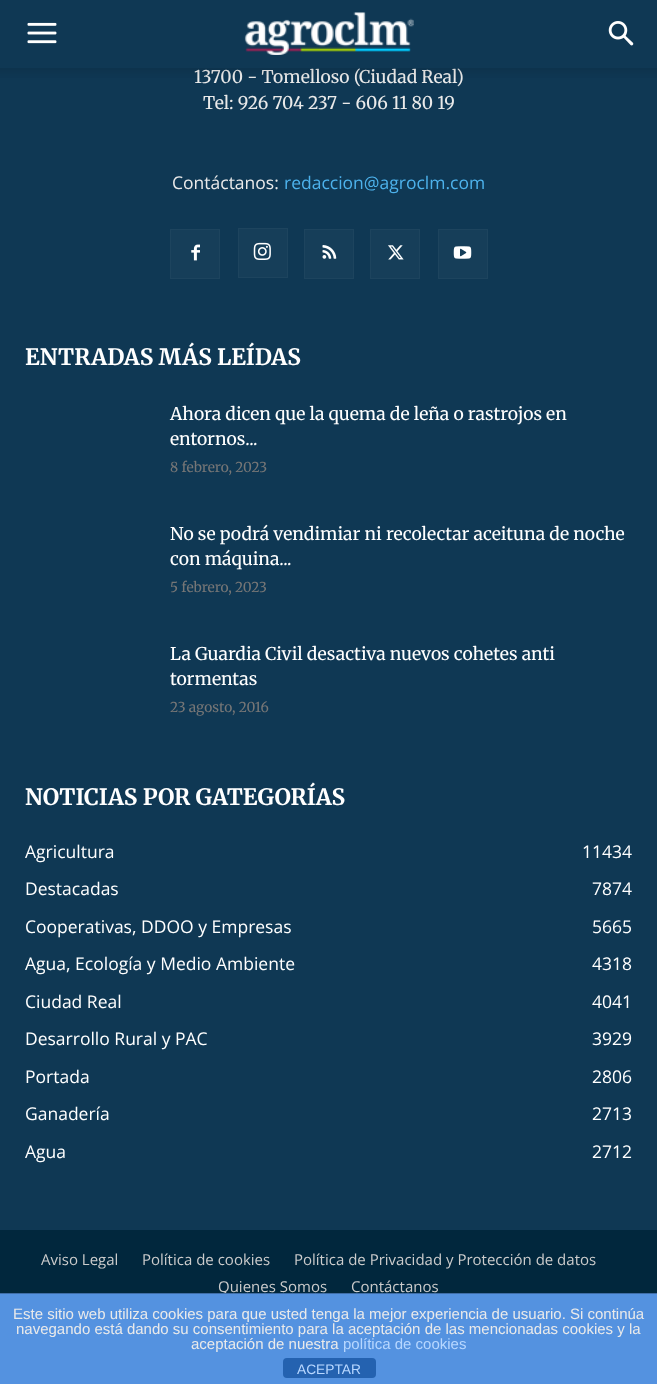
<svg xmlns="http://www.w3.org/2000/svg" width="657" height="1384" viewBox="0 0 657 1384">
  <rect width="100%" height="100%" fill="rgb(1,39,61)"/>
  <rect x="0" y="0" width="657" height="1230" fill="rgb(15,56,84)"/>
  <image x="27" y="22" width="30" height="22" href="pic1.png"/>
  <image x="244" y="12" width="170" height="43" href="pic2.png"/>
  <image x="608" y="21" width="26" height="25" href="pic3.png"/>
  <text x="194" y="83" font-family="Merriweather" font-size="17.5" fill="rgb(234,234,234)">13700 - Tomelloso (Ciudad Real)</text>
  <image x="0" y="68" width="657" height="10" href="pic4.png"/>
  <text x="203" y="109" font-family="Merriweather" font-size="17.5" fill="rgb(234,234,234)">Tel: 926 704 237 - 606 11 80 19</text>
  <text x="172" y="189" font-family="Open Sans" font-size="17.5" fill="rgb(234,234,234)">Contáctanos:</text>
  <text x="284" y="189" font-family="Open Sans" font-size="17.5" fill="rgb(77,178,236)">redaccion@agroclm.com</text>
  <rect x="171" y="230" width="48" height="48" fill="rgb(22,62,89)"/>
  <image x="191" y="244" width="9" height="17" href="pic5.png"/>
  <rect x="170.5" y="229.5" width="49" height="49" fill="none" stroke="rgb(29,68,94)"/>
  <rect x="239" y="229" width="48" height="48" fill="rgb(22,62,89)"/>
  <image x="253" y="242" width="18" height="18" href="pic6.png"/>
  <rect x="238.5" y="228.5" width="49" height="49" fill="none" stroke="rgb(29,68,94)"/>
  <rect x="305" y="230" width="48" height="48" fill="rgb(22,62,89)"/>
  <image x="322" y="245" width="15" height="14" href="pic7.png"/>
  <rect x="304.5" y="229.5" width="49" height="49" fill="none" stroke="rgb(29,68,94)"/>
  <rect x="371" y="230" width="48" height="48" fill="rgb(22,62,89)"/>
  <image x="388" y="245" width="16" height="15" href="pic8.png"/>
  <rect x="370.5" y="229.5" width="49" height="49" fill="none" stroke="rgb(29,68,94)"/>
  <rect x="439" y="230" width="48" height="48" fill="rgb(22,62,89)"/>
  <image x="453" y="246" width="19" height="13" href="pic9.png"/>
  <rect x="438.5" y="229.5" width="49" height="49" fill="none" stroke="rgb(29,68,94)"/>
  <text x="25" y="365" font-family="Merriweather" font-size="22.5" font-weight="bold" fill="rgb(255,255,255)">ENTRADAS MÁS LEÍDAS</text>
  <g font-family="Merriweather" font-size="17.5" fill="rgb(255,255,255)">
    <text>
      <tspan x="170" y="420">Ahora dicen que la quema de leña o rastrojos en</tspan>
      <tspan x="170" y="445">entornos...</tspan>
    </text>
  </g>
  <text x="170" y="472" font-family="Merriweather" font-size="13.75" fill="rgb(118,118,118)">8 febrero, 2023</text>
  <g font-family="Merriweather" font-size="17.5" fill="rgb(255,255,255)">
    <text>
      <tspan x="170" y="540">No se podrá vendimiar ni recolectar aceituna de noche</tspan>
      <tspan x="170" y="565">con máquina...</tspan>
    </text>
  </g>
  <text x="170" y="592" font-family="Merriweather" font-size="13.75" fill="rgb(118,118,118)">5 febrero, 2023</text>
  <g font-family="Merriweather" font-size="17.5" fill="rgb(255,255,255)">
    <text>
      <tspan x="170" y="660">La Guardia Civil desactiva nuevos cohetes anti</tspan>
      <tspan x="170" y="685">tormentas</tspan>
    </text>
  </g>
  <text x="170" y="712" font-family="Merriweather" font-size="13.75" fill="rgb(118,118,118)">23 agosto, 2016</text>
  <text x="25" y="805" font-family="Merriweather" font-size="22.5" font-weight="bold" fill="rgb(255,255,255)">NOTICIAS POR GATEGORÍAS</text>
  <g font-family="Open Sans" font-size="17.5" fill="rgb(255,255,255)">
    <text x="25" y="858">Agricultura</text>
    <text x="582" y="858">11434</text>
    <text x="25" y="895">Destacadas</text>
    <text x="592" y="895">7874</text>
    <text x="25" y="933">Cooperativas, DDOO y Empresas</text>
    <text x="592" y="933">5665</text>
    <text x="25" y="970">Agua, Ecología y Medio Ambiente</text>
    <text x="592" y="970">4318</text>
    <text x="25" y="1008">Ciudad Real</text>
    <text x="592" y="1008">4041</text>
    <text x="25" y="1045">Desarrollo Rural y PAC</text>
    <text x="592" y="1045">3929</text>
    <text x="25" y="1083">Portada</text>
    <text x="592" y="1083">2806</text>
    <text x="25" y="1120">Ganadería</text>
    <text x="592" y="1120">2713</text>
    <text x="25" y="1158">Agua</text>
    <text x="592" y="1158">2712</text>
  </g>
  <g font-family="Open Sans" font-size="15" fill="rgb(204,204,204)">
    <text x="41" y="1265">Aviso Legal</text>
    <text x="142" y="1265">Política de cookies</text>
    <text x="294" y="1265">Política de Privacidad y Protección de datos</text>
    <text x="218" y="1292">Quienes Somos</text>
    <text x="351" y="1292">Contáctanos</text>
  </g>
  <rect x="0" y="1294" width="657" height="90" fill="rgb(84,146,224)"/>
  <rect x="0" y="1293" width="657" height="1" fill="rgb(63,109,167)"/>
  <g font-family="Liberation Sans" font-size="15" fill="rgb(234,234,234)">
    <text x="13" y="1319">Este sitio web utiliza cookies para que usted tenga la mejor experiencia de usuario. Si continúa</text>
    <text x="16" y="1334">navegando está dando su consentimiento para la aceptación de las mencionadas cookies y la</text>
    <text x="191" y="1349">aceptación de nuestra</text>
  </g>
  <text x="343" y="1349" font-family="Liberation Sans" font-size="15" fill="rgb(183,215,255)">política de cookies</text>
  <rect x="283" y="1358" width="93" height="20" rx="4" fill="rgb(36,98,176)"/>
  <text x="297" y="1374" font-family="Liberation Sans" font-size="13.75" fill="rgb(183,215,255)">ACEPTAR</text>
</svg>
